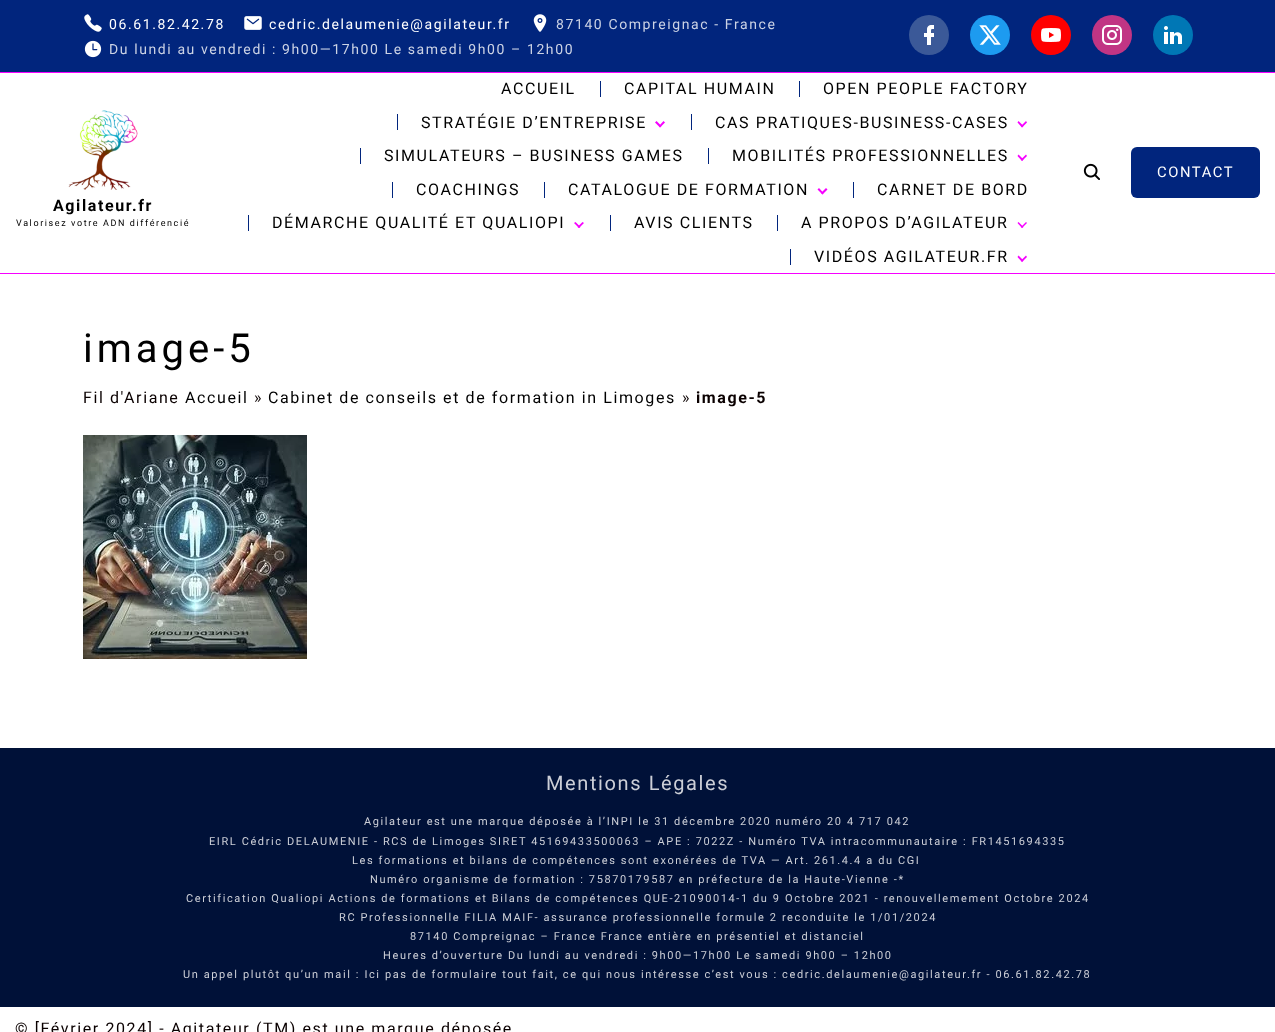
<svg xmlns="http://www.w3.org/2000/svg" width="1275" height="1032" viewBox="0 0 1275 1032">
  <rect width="100%" height="100%" fill="rgb(255,255,255)"/>
  <rect x="0" y="0" width="1275" height="72" fill="rgb(1,37,125)"/>
  <image x="84" y="14" width="18" height="18" href="pic1.png"/>
  <text x="109" y="29" font-family="Roboto" font-size="14" letter-spacing="1.6" fill="rgb(255,255,255)">06.61.82.42.78</text>
  <image x="244" y="16" width="18" height="14" href="pic2.png"/>
  <text x="269" y="29" font-family="Roboto" font-size="14" letter-spacing="1.6" fill="rgb(255,255,255)">cedric.delaumenie@agilateur.fr</text>
  <image x="533" y="14" width="14" height="18" href="pic3.png"/>
  <text x="556" y="29" font-family="Roboto" font-size="14" letter-spacing="1.6" fill="rgb(204,211,229)">87140 Compreignac - France</text>
  <image x="84" y="40" width="18" height="18" href="pic4.png"/>
  <text x="109" y="54" font-family="Roboto" font-size="14" letter-spacing="1.6" fill="rgb(204,211,229)">Du lundi au vendredi : 9h00—17h00 Le samedi 9h00 – 12h00</text>
  <circle cx="929" cy="35" r="20" fill="rgb(59,89,152)"/>
  <image x="924" y="25" width="10" height="20" href="pic5.png"/>
  <circle cx="990" cy="35" r="20" fill="rgb(29,155,240)"/>
  <image x="979" y="25" width="22" height="20" href="pic6.png"/>
  <circle cx="1051" cy="35" r="20" fill="rgb(255,0,0)"/>
  <image x="1041" y="28" width="20" height="14" href="pic7.png"/>
  <circle cx="1112" cy="35" r="20" fill="rgb(193,53,132)"/>
  <image x="1102" y="25" width="20" height="20" href="pic8.png"/>
  <circle cx="1173" cy="35" r="20" fill="rgb(0,119,181)"/>
  <image x="1164" y="26" width="18" height="18" href="pic9.png"/>
  <rect x="0" y="72" width="1275" height="1" fill="rgb(246,0,255)"/>
  <text x="501" y="94" font-family="Roboto" font-size="16" letter-spacing="1.6" fill="rgb(0,0,0)">ACCUEIL</text>
  <rect x="600" y="81" width="1" height="16" fill="rgb(1,37,125)"/>
  <text x="624" y="94" font-family="Roboto" font-size="16" letter-spacing="1.6" fill="rgb(0,0,0)">CAPITAL HUMAIN</text>
  <rect x="799" y="81" width="1" height="16" fill="rgb(1,37,125)"/>
  <text x="823" y="94" font-family="Roboto" font-size="16" letter-spacing="1.6" fill="rgb(0,0,0)">OPEN PEOPLE FACTORY</text>
  <rect x="397" y="114" width="1" height="16" fill="rgb(1,37,125)"/>
  <text x="421" y="128" font-family="Roboto" font-size="16" letter-spacing="1.6" fill="rgb(0,0,0)">STRATÉGIE D’ENTREPRISE</text>
  <path d="M665 122.5L660 127.5L659 126L663.5 121Z" fill="rgb(246,0,255)"/>
  <path d="M661.5 126L660 127.5L655 122.5L656.5 121Z" fill="rgb(246,0,255)"/>
  <rect x="691" y="114" width="1" height="16" fill="rgb(1,37,125)"/>
  <text x="715" y="128" font-family="Roboto" font-size="16" letter-spacing="1.6" fill="rgb(0,0,0)">CAS PRATIQUES-BUSINESS-CASES</text>
  <path d="M1027 122.5L1022 127.5L1021 126L1026 121Z" fill="rgb(246,0,255)"/>
  <path d="M1023.5 126L1022 127.5L1017.5 122.5L1018.5 121Z" fill="rgb(246,0,255)"/>
  <rect x="360" y="148" width="1" height="16" fill="rgb(1,37,125)"/>
  <text x="384" y="161" font-family="Roboto" font-size="16" letter-spacing="1.6" fill="rgb(0,0,0)">SIMULATEURS – BUSINESS GAMES</text>
  <rect x="708" y="148" width="1" height="16" fill="rgb(1,37,125)"/>
  <text x="732" y="161" font-family="Roboto" font-size="16" letter-spacing="1.6" fill="rgb(0,0,0)">MOBILITÉS PROFESSIONNELLES</text>
  <path d="M1027 156L1022 161L1021 159.5L1026 154.5Z" fill="rgb(246,0,255)"/>
  <path d="M1023.5 159.5L1022 161L1017.5 156L1018.5 154.5Z" fill="rgb(246,0,255)"/>
  <rect x="392" y="182" width="1" height="16" fill="rgb(1,37,125)"/>
  <text x="416" y="195" font-family="Roboto" font-size="16" letter-spacing="1.6" fill="rgb(0,0,0)">COACHINGS</text>
  <rect x="544" y="182" width="1" height="16" fill="rgb(1,37,125)"/>
  <text x="568" y="195" font-family="Roboto" font-size="16" letter-spacing="1.6" fill="rgb(0,0,0)">CATALOGUE DE FORMATION</text>
  <path d="M827.5 189.5L822.5 194.5L821 193L826 188Z" fill="rgb(246,0,255)"/>
  <path d="M823.5 193L822.5 194.5L817.5 189.5L819 188Z" fill="rgb(246,0,255)"/>
  <rect x="853" y="182" width="1" height="16" fill="rgb(1,37,125)"/>
  <text x="877" y="195" font-family="Roboto" font-size="16" letter-spacing="1.6" fill="rgb(0,0,0)">CARNET DE BORD</text>
  <rect x="248" y="215" width="1" height="16" fill="rgb(1,37,125)"/>
  <text x="272" y="228" font-family="Roboto" font-size="16" letter-spacing="1.6" fill="rgb(0,0,0)">DÉMARCHE QUALITÉ ET QUALIOPI</text>
  <path d="M584 223L579 228L577.5 227L582.5 222Z" fill="rgb(246,0,255)"/>
  <path d="M580.5 227L579 228L574 223L575.5 222Z" fill="rgb(246,0,255)"/>
  <rect x="610" y="215" width="1" height="16" fill="rgb(1,37,125)"/>
  <text x="634" y="228" font-family="Roboto" font-size="16" letter-spacing="1.6" fill="rgb(0,0,0)">AVIS CLIENTS</text>
  <rect x="777" y="215" width="1" height="16" fill="rgb(1,37,125)"/>
  <text x="801" y="228" font-family="Roboto" font-size="16" letter-spacing="1.6" fill="rgb(0,0,0)">A PROPOS D’AGILATEUR</text>
  <path d="M1027 223L1022 228L1021 227L1026 222Z" fill="rgb(246,0,255)"/>
  <path d="M1023.5 227L1022 228L1017.5 223L1018.5 222Z" fill="rgb(246,0,255)"/>
  <rect x="790" y="249" width="1" height="16" fill="rgb(1,37,125)"/>
  <text x="814" y="262" font-family="Roboto" font-size="16" letter-spacing="1.6" fill="rgb(0,0,0)">VIDÉOS AGILATEUR.FR</text>
  <path d="M1027 257L1022 262L1021 260.5L1026 255.5Z" fill="rgb(246,0,255)"/>
  <path d="M1023.5 260.5L1022 262L1017.5 257L1018.5 255.5Z" fill="rgb(246,0,255)"/>
  <image x="1083" y="163" width="17" height="17" href="pic10.png"/>
  <rect x="1131" y="147" width="129" height="51" rx="6" fill="rgb(1,37,125)"/>
  <text x="1157" y="177" font-family="Roboto" font-size="14.75" letter-spacing="1.6" fill="rgb(255,255,255)">CONTACT</text>
  <image x="68" y="110" width="70" height="80" href="pic11.png"/>
  <text x="53" y="211" font-family="Roboto" font-size="16" font-weight="bold" letter-spacing="1.6" fill="rgb(0,0,0)">Agilateur.fr</text>
  <text x="16" y="226" font-family="Roboto" font-size="9" letter-spacing="1.6" fill="rgb(0,0,0)">Valorisez votre ADN différencié</text>
  <rect x="0" y="273" width="1275" height="1" fill="rgb(246,0,255)"/>
  <text x="83" y="362" font-family="Roboto" font-size="40" letter-spacing="4" fill="rgb(0,0,0)">image-5</text>
  <text x="83" y="403" font-family="Roboto" font-size="16" letter-spacing="1.6" fill="rgb(10,0,0)">Fil d'Ariane</text>
  <text x="185" y="403" font-family="Roboto" font-size="16" letter-spacing="1.6" fill="rgb(0,0,0)">Accueil</text>
  <text x="254" y="403" font-family="Roboto" font-size="16" letter-spacing="1.6" fill="rgb(10,0,0)">»</text>
  <text x="268" y="403" font-family="Roboto" font-size="16" letter-spacing="1.6" fill="rgb(0,0,0)">Cabinet de conseils et de formation in Limoges</text>
  <text x="682" y="403" font-family="Roboto" font-size="16" letter-spacing="1.6" fill="rgb(10,0,0)">»</text>
  <text x="696" y="403" font-family="Roboto" font-size="16" font-weight="bold" letter-spacing="1.6" fill="rgb(10,0,0)">image-5</text>
  <image x="83" y="435" width="224" height="224" href="pic12.png"/>
  <rect x="0" y="748" width="1275" height="259" fill="rgb(0,17,56)"/>
  <text x="546" y="790" font-family="Roboto" font-size="20" letter-spacing="1.6" fill="rgb(204,207,215)">Mentions Légales</text>
  <g font-family="Roboto" font-size="11" letter-spacing="1.6" fill="rgb(204,207,215)">
    <text x="364" y="825">Agilateur est une marque déposée à l’INPI le 31 décembre 2020 numéro 20 4 717 042</text>
    <text x="209" y="845">EIRL Cédric DELAUMENIE - RCS de Limoges SIRET 45169433500063 – APE : 7022Z - Numéro TVA intracommunautaire : FR1451694335</text>
    <text x="352" y="864">Les formations et bilans de compétences sont exonérées de TVA — Art. 261.4.4 a du CGI</text>
    <text x="370" y="883">Numéro organisme de formation : 75870179587 en préfecture de la Haute-Vienne -*</text>
    <text x="186" y="902">Certification Qualiopi Actions de formations et Bilans de compétences QUE-21090014-1 du 9 Octobre 2021 - renouvellemement Octobre 2024</text>
    <text x="339" y="921">RC Professionnelle FILIA MAIF- assurance professionnelle formule 2 reconduite le 1/01/2024</text>
    <text x="410" y="940">87140 Compreignac – France France entière en présentiel et distanciel</text>
    <text x="383" y="959">Heures d’ouverture Du lundi au vendredi : 9h00—17h00 Le samedi 9h00 – 12h00</text>
    <text x="183" y="978">Un appel plutôt qu’un mail : Ici pas de formulaire tout fait, ce qui nous intéresse c’est vous : cedric.delaumenie@agilateur.fr - 06.61.82.42.78</text>
  </g>
  <text x="15" y="1034" font-family="Roboto" font-size="16" letter-spacing="1.6" fill="rgb(10,0,0)">© [Février 2024] - Agitateur (TM) est une marque déposée</text>
</svg>
